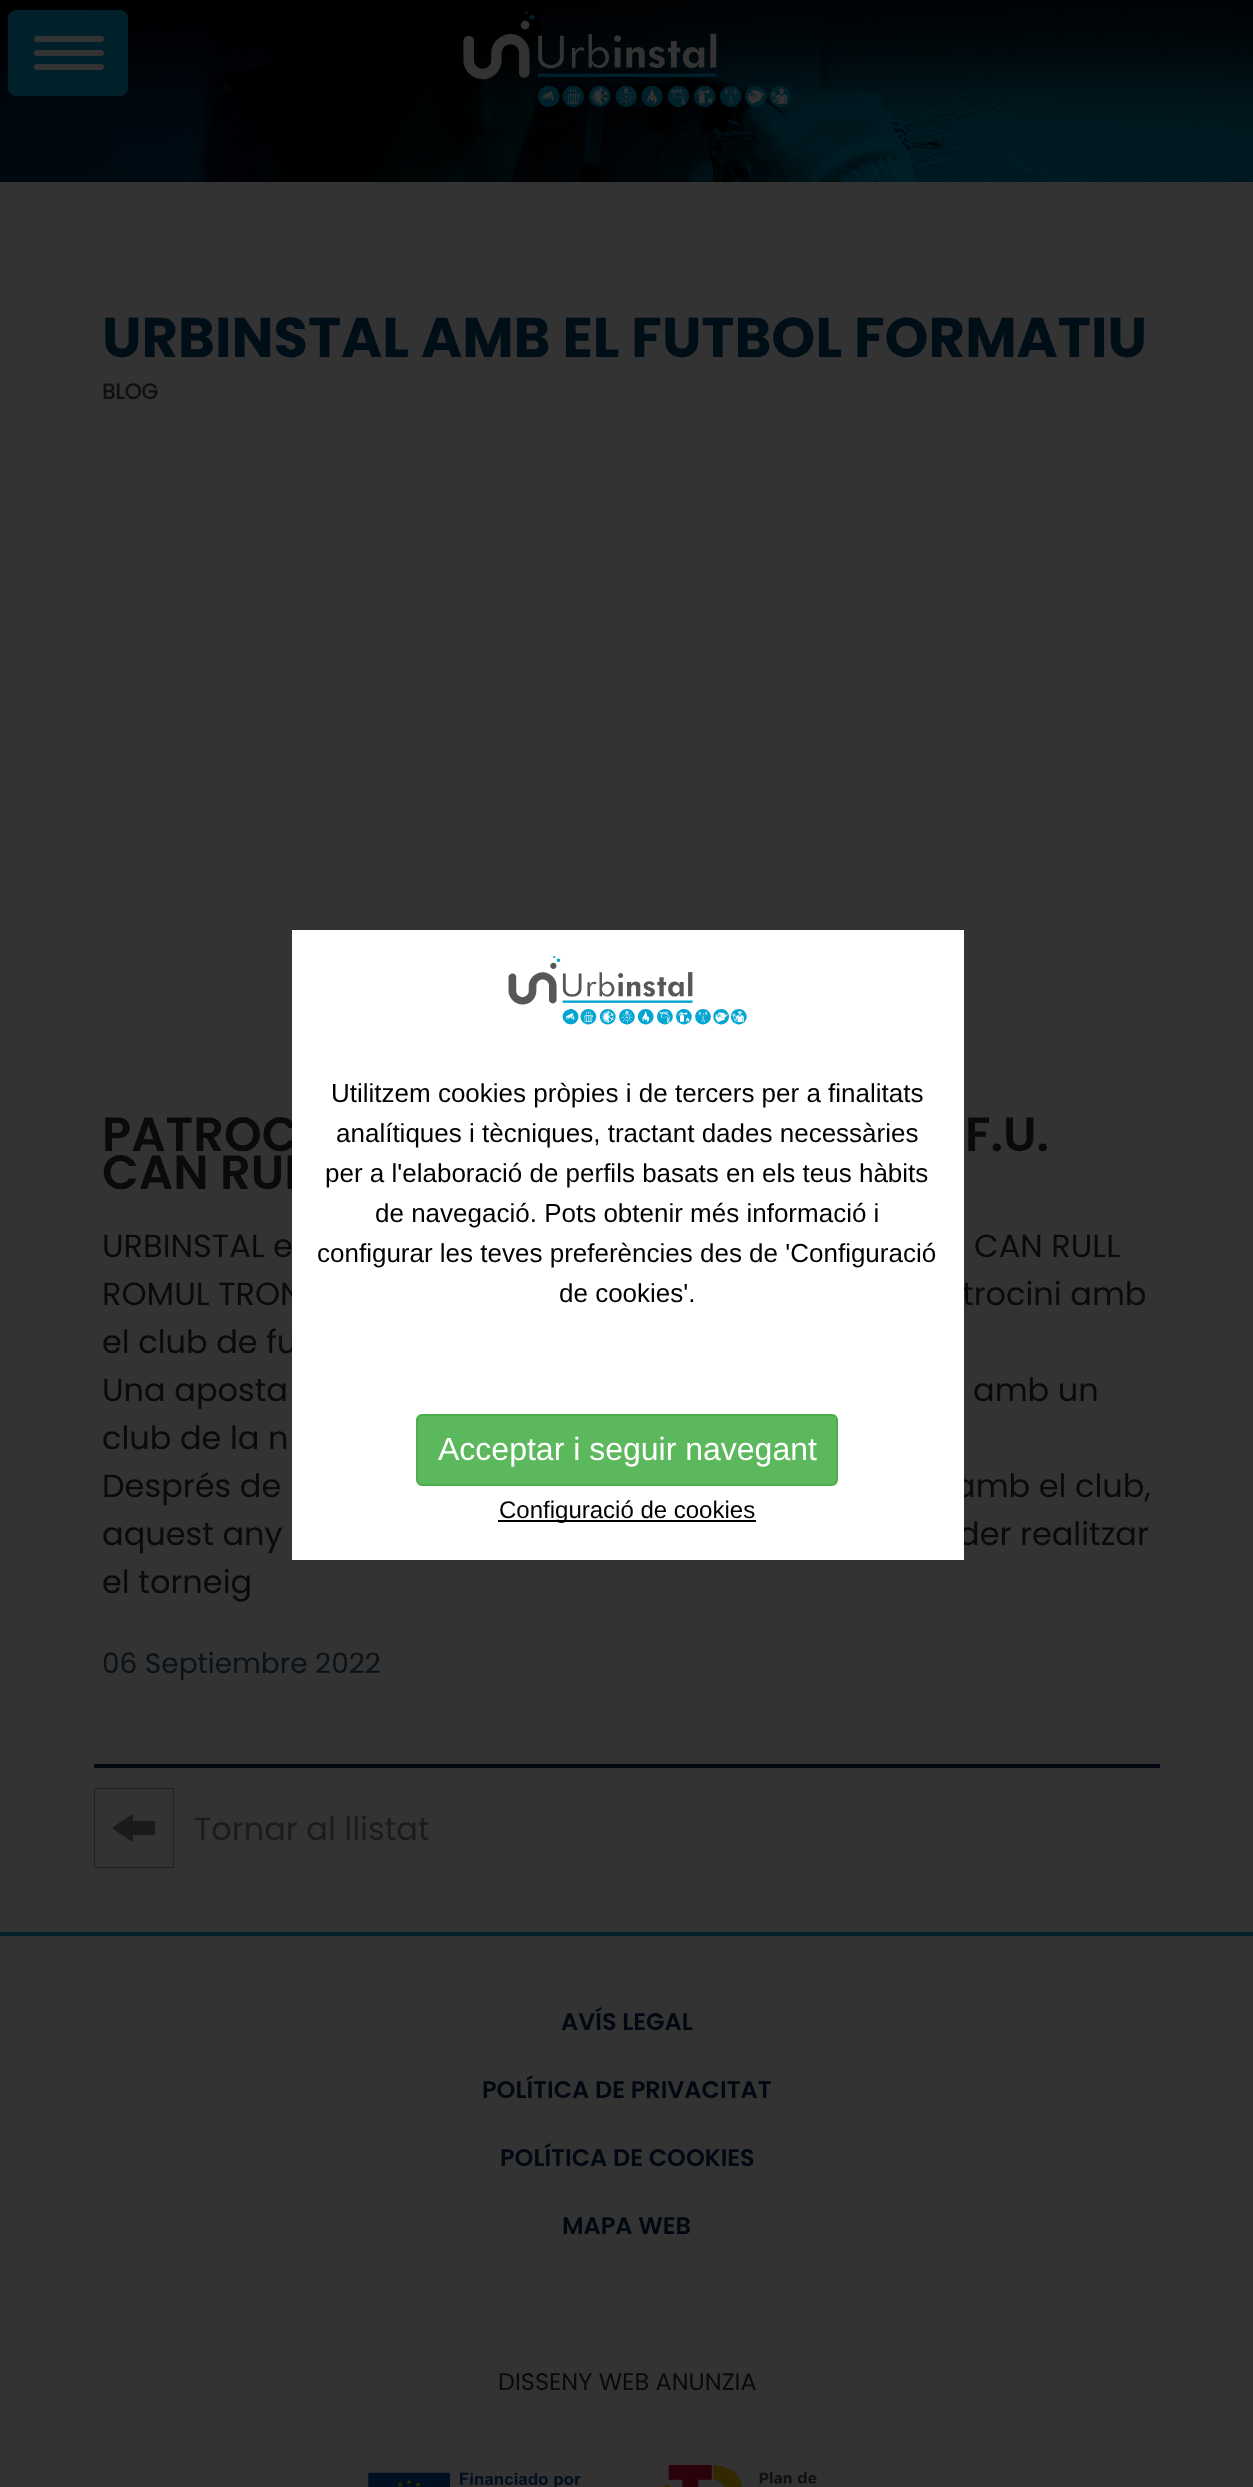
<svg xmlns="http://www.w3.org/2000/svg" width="1253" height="2487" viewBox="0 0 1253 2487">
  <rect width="100%" height="100%" fill="rgb(51,51,51)"/>
  <image x="0" y="0" width="1253" height="182" href="pic1.png"/>
  <rect x="8" y="10" width="120" height="86" rx="8" fill="rgb(0,33,42)"/>
  <rect x="34" y="36" width="70" height="6" rx="3" fill="rgb(51,51,51)"/>
  <rect x="34" y="50" width="70" height="6" rx="3" fill="rgb(51,51,51)"/>
  <rect x="34" y="64" width="70" height="6" rx="3" fill="rgb(51,51,51)"/>
  <image x="463" y="11" width="328" height="96" href="pic2.png"/>
  <text x="102" y="357" font-family="Poppins" font-size="56" font-weight="bold" fill="rgb(0,14,23)">URBINSTAL AMB EL FUTBOL FORMATIU</text>
  <text x="102" y="399" font-family="'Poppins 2'" font-size="21.5" font-weight="bold" fill="rgb(16,16,16)">BLOG</text>
  <g font-family="Poppins" font-size="48" font-weight="600" fill="rgb(10,10,10)">
    <text x="102" y="1151">PATROC</text>
    <text x="965" y="1151">F.U.</text>
    <text x="102" y="1189">CAN RUL</text>
  </g>
  <g font-family="Poppins" font-size="32" fill="rgb(10,10,10)">
    <text x="102" y="1257">URBINSTAL e</text>
    <text x="974" y="1257">CAN RULL</text>
    <text x="102" y="1305">ROMUL TRON</text>
    <text x="962" y="1305">trocini amb</text>
    <text>
      <tspan x="102" y="1353">el club de fu</tspan>
      <tspan x="102" y="1401">Una aposta</tspan>
    </text>
    <text x="973" y="1401">amb un</text>
    <text>
      <tspan x="102" y="1449">club de la n</tspan>
      <tspan x="102" y="1497">Després de</tspan>
    </text>
    <text x="954" y="1497">amb el club,</text>
    <text x="102" y="1545">aquest any</text>
    <text x="958" y="1545">der realitzar</text>
    <text x="102" y="1593">el torneig</text>
  </g>
  <text x="102" y="1673" font-family="Poppins" font-size="28" fill="rgb(10,17,23)">06 Septiembre 2022</text>
  <rect x="94" y="1764" width="1066" height="4" fill="rgb(1,8,18)"/>
  <text x="194" y="1840" font-family="Poppins" font-size="32" fill="rgb(27,27,27)">Tornar al llistat</text>
  <path d="M94.5 1788.5H173.5V1867.5H94.5Z" fill="none" stroke="rgb(27,27,27)" stroke-width="0.7"/>
  <path d="M113 1829L128 1839C134 1843 133 1841 133 1835H151C157 1835 155 1835 155 1828C155 1821 157 1821 151 1821H133C133 1815 134 1813 128 1817L119 1823C119 1824 111 1827 113 1829Z" fill="rgb(27,27,27)"/>
  <rect x="292" y="930" width="672" height="630" fill="rgb(255,255,255)"/>
  <image x="508" y="956" width="239" height="69" href="pic3.png"/>
  <g font-family="Liberation Sans" font-size="26" fill="rgb(0,0,0)">
    <text x="331" y="1102">Utilitzem cookies pròpies i de tercers per a finalitats</text>
    <text x="336" y="1142">analítiques i tècniques, tractant dades necessàries</text>
    <text x="325" y="1182">per a l'elaboració de perfils basats en els teus hàbits</text>
    <text x="375" y="1222">de navegació. Pots obtenir més informació i</text>
    <text x="317" y="1262">configurar les teves preferències des de 'Configuració</text>
    <text x="559" y="1302">de cookies'.</text>
  </g>
  <rect x="417" y="1415" width="420" height="70" rx="5" fill="rgb(92,184,92)" stroke="rgb(76,174,76)" stroke-width="2"/>
  <text x="438" y="1460" font-family="Liberation Sans" font-size="32" fill="rgb(255,255,255)">Acceptar i seguir navegant</text>
  <rect x="498" y="1520" width="258" height="2" fill="rgb(0,0,0)"/>
  <text x="499" y="1518" font-family="Liberation Sans" font-size="24" fill="rgb(0,0,0)">Configuració de cookies</text>
  <rect x="0" y="1932" width="1253" height="4" fill="rgb(0,33,42)"/>
  <g font-family="Poppins" font-size="24" font-weight="600" fill="rgb(1,8,18)">
    <text x="561" y="2030">AVÍS LEGAL</text>
    <text x="482" y="2098">POLÍTICA DE PRIVACITAT</text>
    <text x="500" y="2166">POLÍTICA DE COOKIES</text>
    <text x="562" y="2234">MAPA WEB</text>
  </g>
  <text x="498" y="2390" font-family="Poppins" font-size="24" fill="rgb(10,10,10)">DISSENY WEB ANUNZIA</text>
  <image x="368" y="2472" width="213" height="15" href="pic4.png"/>
  <image x="662" y="2465" width="155" height="22" href="pic5.png"/>
</svg>
